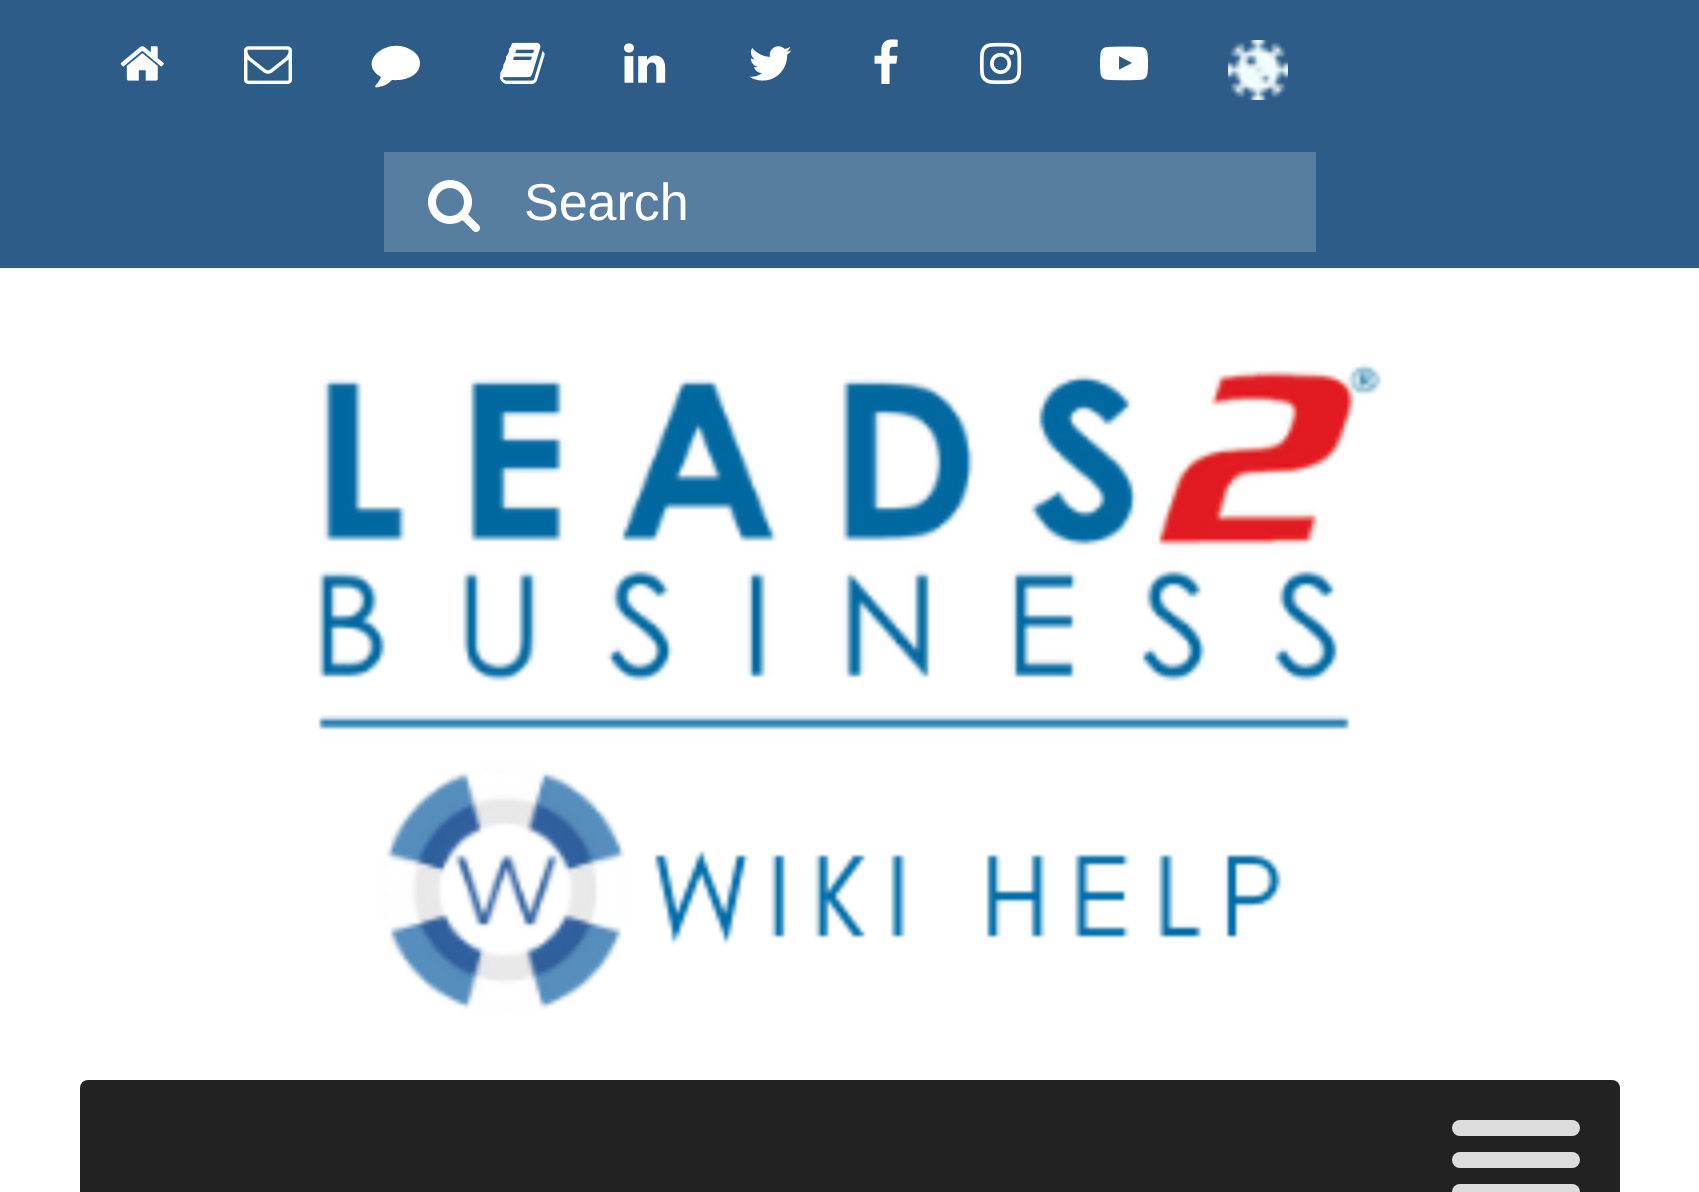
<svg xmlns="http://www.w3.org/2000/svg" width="1699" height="1192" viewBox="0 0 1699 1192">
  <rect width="100%" height="100%" fill="rgb(255,255,255)"/>
  <rect x="0" y="0" width="1699" height="268" fill="rgb(45,92,136)"/>
  <image x="120" y="46" width="44" height="35" href="pic1.png"/>
  <image x="244" y="46" width="48" height="38" href="pic2.png"/>
  <path d="M420 63C420 77 403 81 392 80C388 84 384 86 379 87C371 89 378 83 379 81L381 77C355 62 389 34 413 51C417 54 420 58 420 63Z" fill="rgb(255,255,255)"/>
  <image x="500" y="42" width="45" height="42" href="pic3.png"/>
  <image x="624" y="43" width="42" height="40" href="pic4.png"/>
  <image x="749" y="46" width="43" height="35" href="pic5.png"/>
  <image x="874" y="39" width="24" height="45" href="pic6.png"/>
  <image x="980" y="42" width="42" height="42" href="pic7.png"/>
  <image x="1100" y="46" width="48" height="35" href="pic8.png"/>
  <image x="1228" y="40" width="60" height="60" href="pic9.png"/>
  <rect x="384" y="152" width="932" height="100" fill="rgb(87,125,160)"/>
  <image x="428" y="180" width="52" height="52" href="pic10.png"/>
  <text x="524" y="220" font-family="Liberation Sans" font-size="52" fill="rgb(255,255,255)">Search</text>
  <image x="318" y="363" width="1064" height="647" href="pic11.png"/>
  <rect x="80" y="1080" width="1540" height="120" rx="8" fill="rgb(34,34,34)"/>
  <rect x="1452" y="1120" width="128" height="16" rx="8" fill="rgb(221,221,221)"/>
  <rect x="1452" y="1152" width="128" height="16" rx="8" fill="rgb(221,221,221)"/>
  <rect x="1452" y="1184" width="128" height="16" rx="8" fill="rgb(221,221,221)"/>
</svg>
